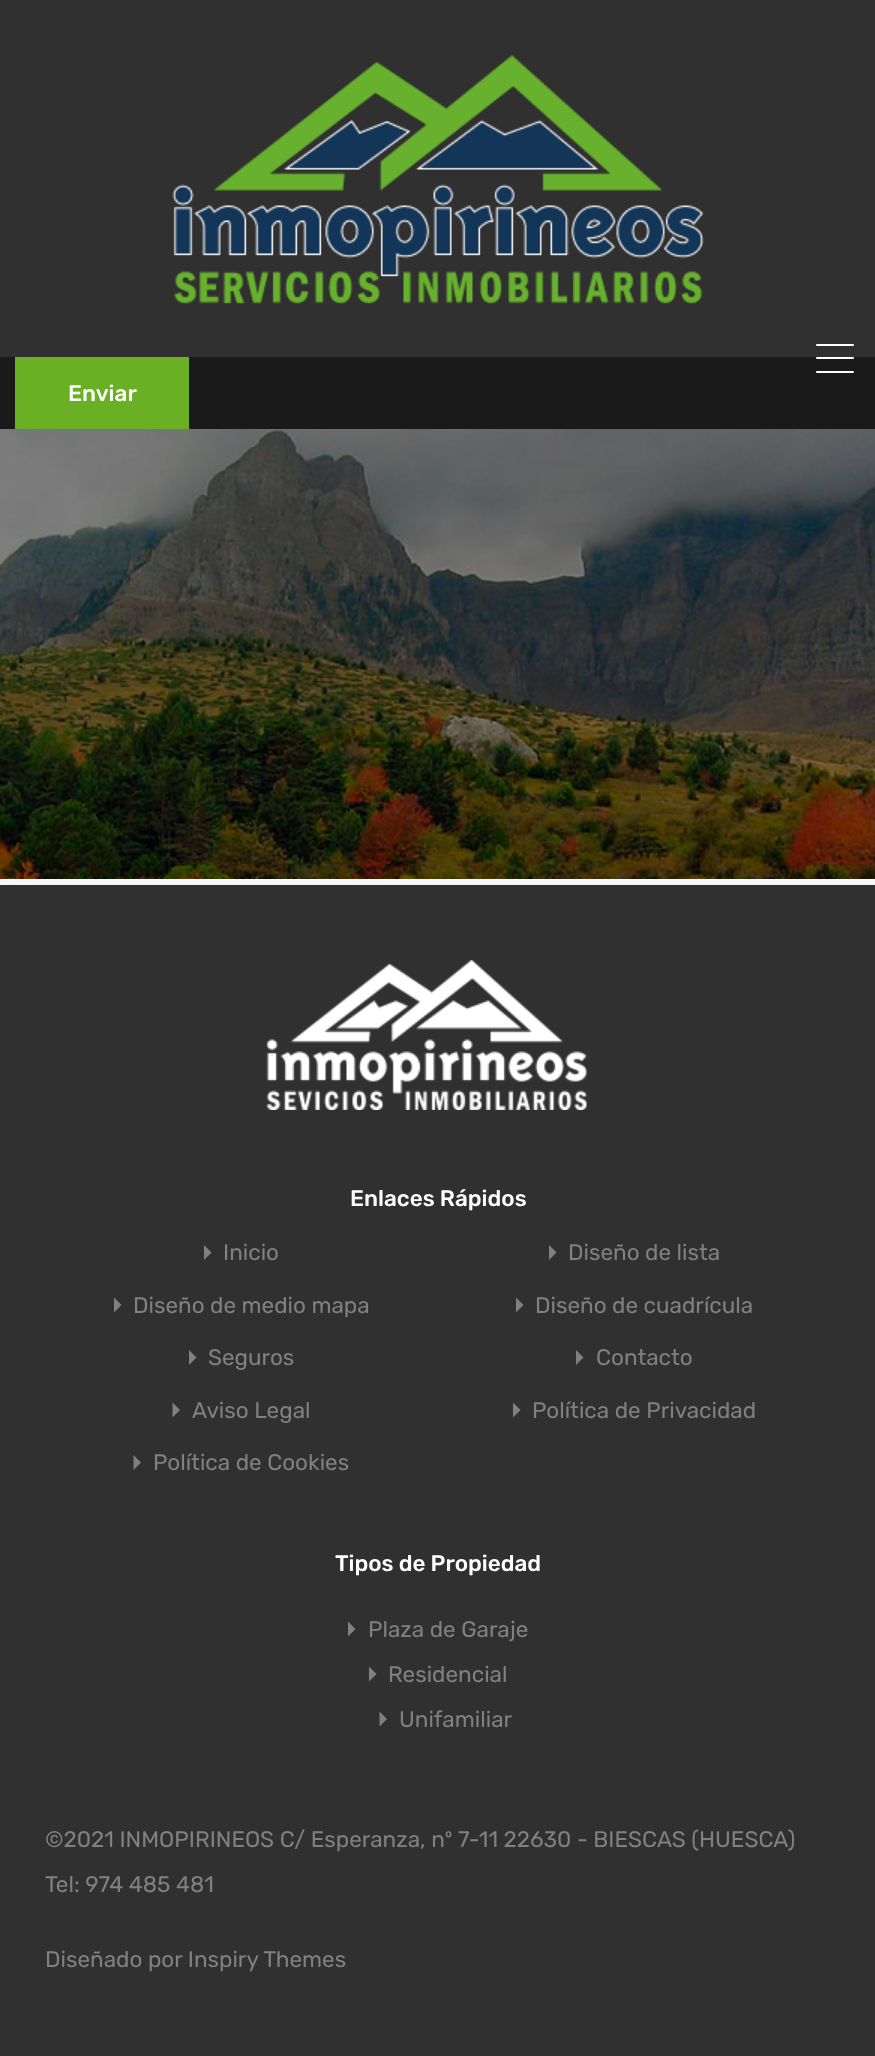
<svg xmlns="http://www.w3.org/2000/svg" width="875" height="2056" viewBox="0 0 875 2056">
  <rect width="100%" height="100%" fill="rgb(247,247,247)"/>
  <rect x="0" y="0" width="875" height="357" fill="rgb(48,48,48)"/>
  <image x="172" y="55" width="532" height="249" href="pic1.png"/>
  <rect x="0" y="357" width="875" height="72" fill="rgb(26,26,26)"/>
  <rect x="816" y="357" width="38" height="2" rx="1" fill="rgb(255,255,255)"/>
  <rect x="816" y="344" width="38" height="2" rx="1" fill="rgb(255,255,255)"/>
  <rect x="816" y="371" width="38" height="2" rx="1" fill="rgb(255,255,255)"/>
  <rect x="15" y="357" width="174" height="72" fill="rgb(105,176,37)"/>
  <text x="68" y="401" font-family="Rubik" font-size="22.5" font-weight="500" fill="rgb(255,255,255)">Enviar</text>
  <image x="0" y="429" width="875" height="450" href="pic2.png"/>
  <rect x="0" y="885" width="875" height="1171" fill="rgb(48,48,48)"/>
  <image x="266" y="960" width="321" height="150" href="pic3.png"/>
  <text x="350" y="1206" font-family="Rubik" font-size="22.5" font-weight="500" fill="rgb(255,255,255)">Enlaces Rápidos</text>
  <path d="M204 1260V1245L211.5 1252.5Z" fill="rgb(128,128,128)"/>
  <text x="223" y="1260" font-family="Rubik" font-size="22.5" fill="rgb(128,128,128)">Inicio</text>
  <path d="M549 1260V1245L556.5 1252.5Z" fill="rgb(128,128,128)"/>
  <text x="568" y="1260" font-family="Rubik" font-size="22.5" fill="rgb(128,128,128)">Diseño de lista</text>
  <path d="M114 1312.5V1297.5L121.5 1305Z" fill="rgb(128,128,128)"/>
  <text x="133" y="1313" font-family="Rubik" font-size="22.5" fill="rgb(128,128,128)">Diseño de medio mapa</text>
  <path d="M516 1312.5V1297.5L523.5 1305Z" fill="rgb(128,128,128)"/>
  <text x="535" y="1313" font-family="Rubik" font-size="22.5" fill="rgb(128,128,128)">Diseño de cuadrícula</text>
  <path d="M189 1365V1350L196.5 1357.5Z" fill="rgb(128,128,128)"/>
  <text x="208" y="1365" font-family="Rubik" font-size="22.5" fill="rgb(128,128,128)">Seguros</text>
  <path d="M576 1365V1350L583.5 1357.5Z" fill="rgb(128,128,128)"/>
  <text x="596" y="1365" font-family="Rubik" font-size="22.5" fill="rgb(128,128,128)">Contacto</text>
  <path d="M172.5 1417.5V1402.5L180 1410Z" fill="rgb(128,128,128)"/>
  <text x="192" y="1418" font-family="Rubik" font-size="22.5" fill="rgb(128,128,128)">Aviso Legal</text>
  <path d="M513 1417.5V1402.5L520.5 1410Z" fill="rgb(128,128,128)"/>
  <text x="532" y="1418" font-family="Rubik" font-size="22.5" fill="rgb(128,128,128)">Política de Privacidad</text>
  <path d="M133.5 1470V1455L141 1462.5Z" fill="rgb(128,128,128)"/>
  <text x="153" y="1470" font-family="Rubik" font-size="22.5" fill="rgb(128,128,128)">Política de Cookies</text>
  <text x="335" y="1571" font-family="Rubik" font-size="22.5" font-weight="500" fill="rgb(255,255,255)">Tipos de Propiedad</text>
  <path d="M348 1636.5V1621.5L355.5 1629Z" fill="rgb(128,128,128)"/>
  <text x="368" y="1637" font-family="Rubik" font-size="22.5" fill="rgb(128,128,128)">Plaza de Garaje</text>
  <path d="M369 1681.5V1666.5L376.5 1674Z" fill="rgb(128,128,128)"/>
  <text x="388" y="1682" font-family="Rubik" font-size="22.5" fill="rgb(128,128,128)">Residencial</text>
  <path d="M379.5 1726.5V1711.5L387 1719Z" fill="rgb(128,128,128)"/>
  <g font-family="Rubik" font-size="22.5" fill="rgb(128,128,128)">
    <text x="399" y="1727">Unifamiliar</text>
    <text x="45" y="1847">©2021 INMOPIRINEOS C/ Esperanza, nº 7-11 22630 - BIESCAS (HUESCA)</text>
    <text x="45" y="1892">Tel: 974 485 481</text>
    <text x="45" y="1967">Diseñado por Inspiry Themes</text>
  </g>
</svg>
